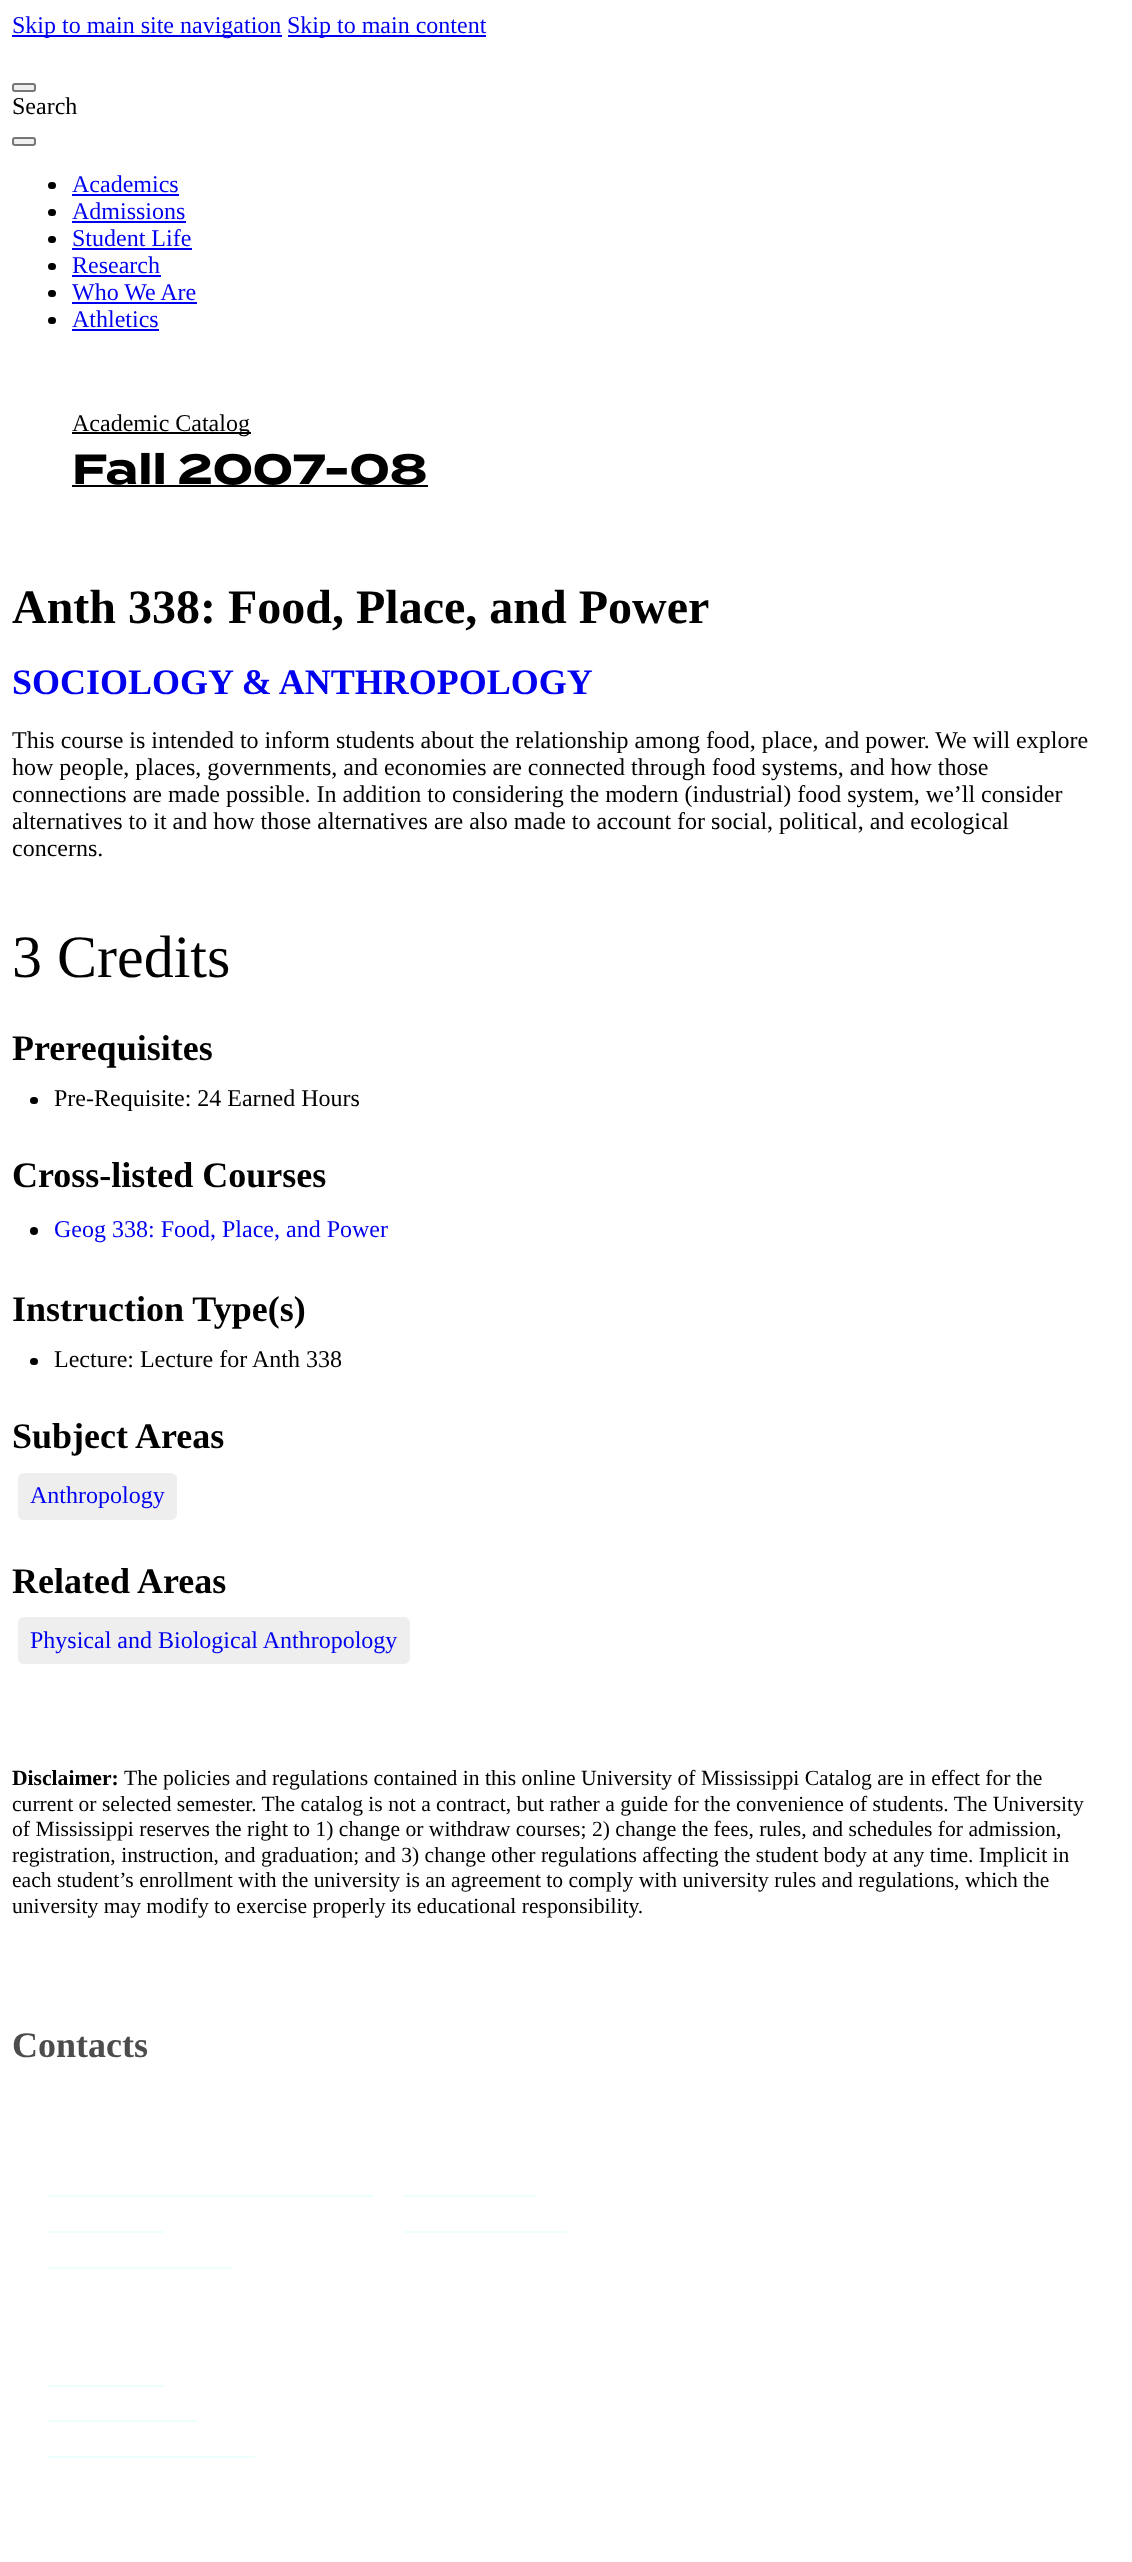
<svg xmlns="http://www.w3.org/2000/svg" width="1132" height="2562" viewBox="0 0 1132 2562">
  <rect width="100%" height="100%" fill="rgb(255,255,255)"/>
  <rect x="12" y="35" width="270" height="2" fill="rgb(0,0,238)"/>
  <text x="12" y="33" font-family="Liberation Serif" font-size="24" fill="rgb(0,0,238)">Skip to main site navigation</text>
  <rect x="288" y="35" width="198" height="2" fill="rgb(0,0,238)"/>
  <text x="287" y="33" font-family="Liberation Serif" font-size="24" fill="rgb(0,0,238)">Skip to main content</text>
  <rect x="13" y="84" width="22" height="7" rx="2" fill="rgb(239,239,239)" stroke="rgb(118,118,118)" stroke-width="2"/>
  <text x="12" y="114" font-family="Liberation Serif" font-size="24" fill="rgb(0,0,0)">Search</text>
  <rect x="13" y="138" width="22" height="7" rx="2" fill="rgb(239,239,239)" stroke="rgb(118,118,118)" stroke-width="2"/>
  <rect x="48" y="182" width="8" height="7" rx="3.5" fill="rgb(0,0,0)"/>
  <text x="72" y="192" font-family="Liberation Serif" font-size="24" fill="rgb(0,0,238)">Academics</text>
  <rect x="72" y="194" width="107" height="2" fill="rgb(0,0,238)"/>
  <rect x="48" y="209" width="8" height="7" rx="3.5" fill="rgb(0,0,0)"/>
  <text x="72" y="219" font-family="Liberation Serif" font-size="24" fill="rgb(0,0,238)">Admissions</text>
  <rect x="72" y="221" width="114" height="2" fill="rgb(0,0,238)"/>
  <rect x="48" y="236" width="8" height="7" rx="3.5" fill="rgb(0,0,0)"/>
  <text x="72" y="246" font-family="Liberation Serif" font-size="24" fill="rgb(0,0,238)">Student Life</text>
  <rect x="72" y="248" width="120" height="2" fill="rgb(0,0,238)"/>
  <rect x="48" y="263" width="8" height="7" rx="3.5" fill="rgb(0,0,0)"/>
  <text x="72" y="273" font-family="Liberation Serif" font-size="24" fill="rgb(0,0,238)">Research</text>
  <rect x="72" y="275" width="89" height="2" fill="rgb(0,0,238)"/>
  <rect x="48" y="290" width="8" height="7" rx="3.5" fill="rgb(0,0,0)"/>
  <text x="72" y="300" font-family="Liberation Serif" font-size="24" fill="rgb(0,0,238)">Who We Are</text>
  <rect x="72" y="302" width="125" height="2" fill="rgb(0,0,238)"/>
  <rect x="48" y="317" width="8" height="7" rx="3.5" fill="rgb(0,0,0)"/>
  <text x="72" y="327" font-family="Liberation Serif" font-size="24" fill="rgb(0,0,238)">Athletics</text>
  <rect x="72" y="329" width="87" height="2" fill="rgb(0,0,238)"/>
  <rect x="72" y="432" width="179" height="2" fill="rgb(0,0,0)"/>
  <text x="72" y="431" font-family="Liberation Serif" font-size="24" fill="rgb(0,0,0)">Academic Catalog</text>
  <text x="72" y="484" font-family="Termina" font-size="42" font-weight="bold" fill="rgb(0,0,0)">Fall 2007-08</text>
  <rect x="72" y="485" width="356" height="2" fill="rgb(0,0,0)"/>
  <text x="12" y="623" font-family="Liberation Serif" font-size="48" font-weight="bold" fill="rgb(0,0,0)">Anth 338: Food, Place, and Power</text>
  <text x="12" y="694" font-family="Liberation Serif" font-size="36" font-weight="bold" fill="rgb(0,0,238)">SOCIOLOGY &amp; ANTHROPOLOGY</text>
  <g font-family="Liberation Serif" font-size="24" fill="rgb(0,0,0)">
    <text>
      <tspan x="12" y="748">This course is intended to inform students about the relationship among food, place, and power. We will explore</tspan>
      <tspan x="12" y="775">how people, places, governments, and economies are connected through food systems, and how those</tspan>
      <tspan x="12" y="802">connections are made possible. In addition to considering the modern (industrial) food system, we’ll consider</tspan>
      <tspan x="12" y="829">alternatives to it and how those alternatives are also made to account for social, political, and ecological</tspan>
      <tspan x="12" y="856">concerns.</tspan>
    </text>
  </g>
  <text x="12" y="977" font-family="Liberation Serif" font-size="60" fill="rgb(0,0,0)">3 Credits</text>
  <text x="12" y="1060" font-family="Liberation Serif" font-size="36" font-weight="bold" fill="rgb(0,0,0)">Prerequisites</text>
  <rect x="30" y="1097" width="8" height="7" rx="3.5" fill="rgb(0,0,0)"/>
  <text x="54" y="1106" font-family="Liberation Serif" font-size="24" fill="rgb(0,0,0)">Pre-Requisite: 24 Earned Hours</text>
  <text x="12" y="1187" font-family="Liberation Serif" font-size="36" font-weight="bold" fill="rgb(0,0,0)">Cross-listed Courses</text>
  <circle cx="34" cy="1231" r="4" fill="rgb(0,0,0)"/>
  <text x="54" y="1237" font-family="Liberation Serif" font-size="24" fill="rgb(0,0,238)">Geog 338: Food, Place, and Power</text>
  <text x="12" y="1321" font-family="Liberation Serif" font-size="36" font-weight="bold" fill="rgb(0,0,0)">Instruction Type(s)</text>
  <rect x="30" y="1358" width="8" height="7" rx="3.5" fill="rgb(0,0,0)"/>
  <text x="54" y="1367" font-family="Liberation Serif" font-size="24" fill="rgb(0,0,0)">Lecture: Lecture for Anth 338</text>
  <text x="12" y="1448" font-family="Liberation Serif" font-size="36" font-weight="bold" fill="rgb(0,0,0)">Subject Areas</text>
  <rect x="18" y="1473" width="159" height="47" rx="6" fill="rgb(238,238,238)"/>
  <text x="30" y="1503" font-family="Liberation Serif" font-size="24" fill="rgb(0,0,238)">Anthropology</text>
  <text x="12" y="1593" font-family="Liberation Serif" font-size="36" font-weight="bold" fill="rgb(0,0,0)">Related Areas</text>
  <rect x="18" y="1617" width="392" height="47" rx="6" fill="rgb(238,238,238)"/>
  <text x="30" y="1648" font-family="Liberation Serif" font-size="24" fill="rgb(0,0,238)">Physical and Biological Anthropology</text>
  <text x="12" y="1785" font-family="Liberation Serif" font-size="21.6" font-weight="bold" fill="rgb(0,0,0)">Disclaimer:</text>
  <g font-family="Liberation Serif" font-size="21.6" fill="rgb(0,0,0)">
    <text x="124" y="1785">The policies and regulations contained in this online University of Mississippi Catalog are in effect for the</text>
    <text>
      <tspan x="12" y="1811">current or selected semester. The catalog is not a contract, but rather a guide for the convenience of students. The University</tspan>
      <tspan x="12" y="1836">of Mississippi reserves the right to 1) change or withdraw courses; 2) change the fees, rules, and schedules for admission,</tspan>
      <tspan x="12" y="1862">registration, instruction, and graduation; and 3) change other regulations affecting the student body at any time. Implicit in</tspan>
      <tspan x="12" y="1887">each student’s enrollment with the university is an agreement to comply with university rules and regulations, which the</tspan>
      <tspan x="12" y="1913">university may modify to exercise properly its educational responsibility.</tspan>
    </text>
  </g>
  <text x="12" y="2057" font-family="Liberation Serif" font-size="36" font-weight="bold" fill="rgb(76,76,76)">Contacts</text>
  <rect x="48" y="2195" width="326" height="2" fill="rgb(235,255,252)"/>
  <rect x="48" y="2231" width="116" height="2" fill="rgb(235,255,252)"/>
  <rect x="48" y="2267" width="183" height="2" fill="rgb(235,255,252)"/>
  <rect x="404" y="2195" width="132" height="2" fill="rgb(235,255,252)"/>
  <rect x="404" y="2231" width="162" height="2" fill="rgb(235,255,252)"/>
  <rect x="48" y="2385" width="116" height="2" fill="rgb(235,255,252)"/>
  <rect x="48" y="2420" width="149" height="2" fill="rgb(235,255,252)"/>
  <rect x="48" y="2456" width="207" height="2" fill="rgb(235,255,252)"/>
</svg>
